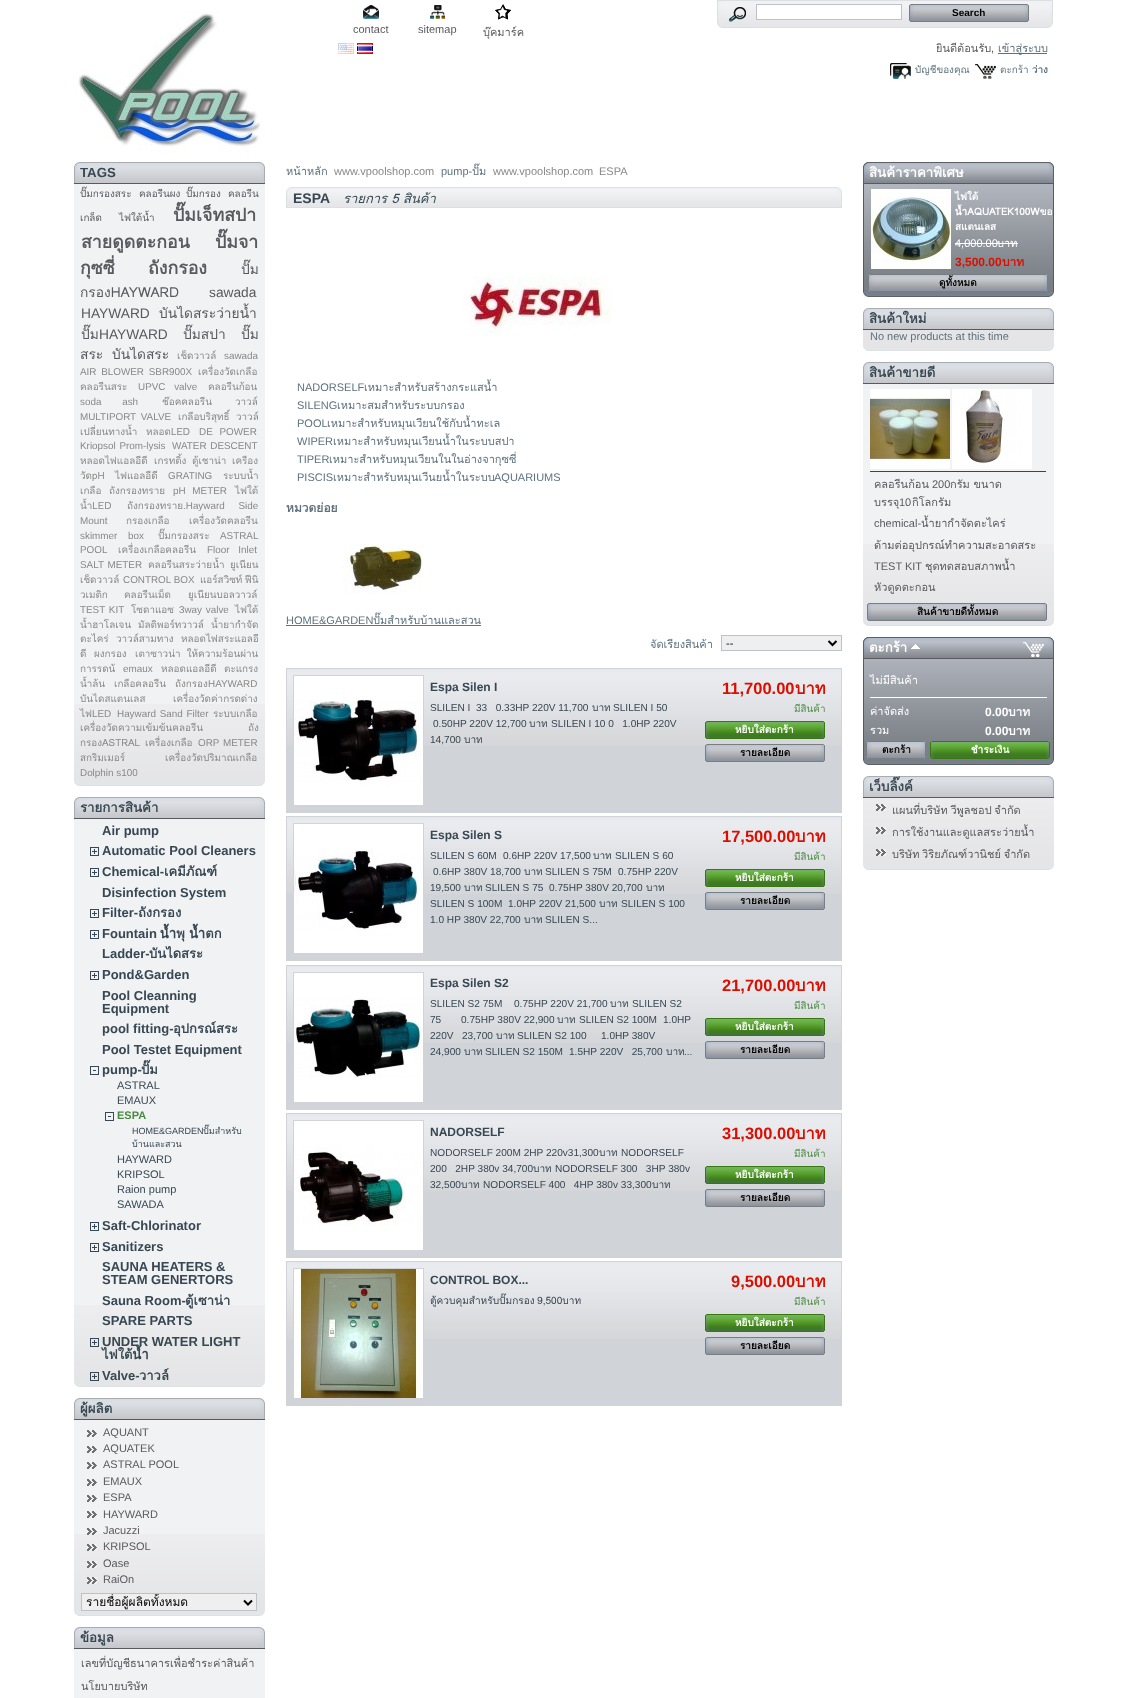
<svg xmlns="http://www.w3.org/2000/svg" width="1127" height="1698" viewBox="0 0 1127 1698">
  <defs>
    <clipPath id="clip1"><rect x="86" y="1594" width="154" height="16"/></clipPath>
  </defs>
  <rect width="100%" height="100%" fill="rgb(255,255,255)"/>
  <image x="74" y="11" width="189" height="142" href="pic1.png"/>
  <image x="717" y="0" width="336" height="28" href="pic2.png"/>
  <image x="729" y="7" width="17" height="15" href="pic3.png"/>
  <rect x="756.5" y="4.5" width="145" height="15" fill="rgb(255,255,255)" stroke="rgb(189,194,201)"/>
  <rect x="909" y="4" width="120" height="18" fill="rgb(239,239,239)"/>
  <image x="909" y="4" width="120" height="18" href="pic4.png"/>
  <text x="952" y="16" font-family="Liberation Sans" font-size="10" font-weight="bold" fill="rgb(0,0,0)">Search</text>
  <image x="363" y="5" width="16" height="14" href="pic5.png"/>
  <text x="353" y="33" font-family="Liberation Sans" font-size="11" fill="rgb(89,90,94)">contact</text>
  <image x="430" y="5" width="15" height="14" href="pic6.png"/>
  <text x="418" y="33" font-family="Liberation Sans" font-size="11" fill="rgb(89,90,94)">sitemap</text>
  <image x="495" y="4" width="16" height="16" href="pic7.png"/>
  <text x="483" y="36" font-family="Loma" font-size="11" fill="rgb(89,90,94)">บุ๊คมาร์ค</text>
  <image x="338" y="43" width="16" height="11" href="pic8.png"/>
  <image x="357" y="43" width="16" height="11" href="pic9.png"/>
  <text x="936" y="52" font-family="Loma" font-size="11" fill="rgb(89,90,94)">ยินดีต้อนรับ</text>
  <text x="991" y="52" font-family="Liberation Sans" font-size="11" fill="rgb(89,90,94)">,</text>
  <rect x="998" y="53" width="49" height="1" fill="rgb(93,113,126)"/>
  <text x="998" y="52" font-family="Loma" font-size="11" fill="rgb(93,113,126)">เข้าสู่ระบบ</text>
  <image x="890" y="63" width="21" height="16" href="pic10.png"/>
  <text x="915" y="73" font-family="Loma" font-size="9.9" fill="rgb(93,113,126)">บัญชีของคุณ</text>
  <image x="975" y="64" width="21" height="15" href="pic11.png"/>
  <text x="1000" y="73" font-family="Loma" font-size="9.9" fill="rgb(93,113,126)">ตะกร้า</text>
  <text x="1032" y="73" font-family="Loma" font-size="9.9" font-weight="bold" fill="rgb(93,113,126)">ว่าง</text>
  <image x="74" y="781" width="191" height="5" href="pic12.png"/>
  <image x="74" y="162" width="191" height="21" href="pic13.png"/>
  <rect x="74" y="183" width="191" height="1" fill="rgb(89,90,94)"/>
  <text x="80" y="177" font-family="Liberation Sans" font-size="13.25" font-weight="bold" fill="rgb(55,72,83)">TAGS</text>
  <rect x="74" y="184" width="191" height="520" fill="rgb(241,242,244)"/>
  <image x="74" y="704" width="191" height="77" href="pic14.png"/>
  <g font-family="Loma" font-size="9.9" fill="rgb(89,90,94)">
    <text x="80" y="197">ปั๊มกรองสระ</text>
    <text x="139" y="197">คลอรีนผง</text>
    <text x="186" y="197">ปั๊มกรอง</text>
    <text x="228" y="197">คลอรีน</text>
    <text x="80" y="221">เกล็ด</text>
    <text x="119" y="221">ไฟใต้น้ำ</text>
  </g>
  <g font-family="Loma" font-size="17.75" font-weight="bold" fill="rgb(89,90,94)">
    <text x="173" y="221">ปั๊มเจ็ทสปา</text>
    <text x="81" y="248">สายดูดตะกอน</text>
    <text x="215" y="248">ปั๊มจา</text>
    <text x="80" y="274">กุซซี่</text>
    <text x="148" y="274">ถังกรอง</text>
  </g>
  <g font-family="Loma" font-size="13.75" fill="rgb(89,90,94)">
    <text x="241" y="274">ปั๊ม</text>
    <text x="80" y="297">กรองHAYWARD</text>
  </g>
  <g font-family="Liberation Sans" font-size="13.75" fill="rgb(89,90,94)">
    <text x="209" y="297">sawada</text>
    <text x="81" y="318">HAYWARD</text>
  </g>
  <g font-family="Loma" font-size="13.75" fill="rgb(89,90,94)">
    <text x="159" y="318">บันไดสระว่ายน้ำ</text>
    <text x="81" y="339">ปั๊ม</text>
  </g>
  <text x="99" y="339" font-family="Liberation Sans" font-size="13.75" fill="rgb(89,90,94)">HAYWARD</text>
  <g font-family="Loma" font-size="13.75" fill="rgb(89,90,94)">
    <text x="183" y="339">ปั๊มสปา</text>
    <text x="241" y="339">ปั๊ม</text>
    <text x="80" y="359">สระ</text>
    <text x="112" y="359">บันไดสระ</text>
  </g>
  <text x="177" y="359" font-family="Loma" font-size="9.9" fill="rgb(136,136,136)">เช็ดวาวล์</text>
  <g font-family="Liberation Sans" font-size="9.9" fill="rgb(136,136,136)">
    <text x="224" y="359">sawada</text>
    <text x="80" y="375" word-spacing="2">AIR BLOWER SBR900X</text>
  </g>
  <g font-family="Loma" font-size="9.9" fill="rgb(136,136,136)">
    <text x="198" y="375">เครื่องวัดเกลือ</text>
    <text x="80" y="390">คลอรีนสระ</text>
  </g>
  <text x="138" y="390" word-spacing="6" font-family="Liberation Sans" font-size="9.9" fill="rgb(136,136,136)">UPVC valve</text>
  <text x="208" y="390" font-family="Loma" font-size="9.9" fill="rgb(136,136,136)">คลอรีนก้อน</text>
  <text x="80" y="405" word-spacing="18" font-family="Liberation Sans" font-size="9.9" fill="rgb(136,136,136)">soda ash</text>
  <g font-family="Loma" font-size="9.9" fill="rgb(136,136,136)">
    <text x="162" y="405">ช๊อคคลอรีน</text>
    <text x="235" y="405">วาวล์</text>
  </g>
  <text x="80" y="420" word-spacing="2" font-family="Liberation Sans" font-size="9.9" fill="rgb(136,136,136)">MULTIPORT VALVE</text>
  <g font-family="Loma" font-size="9.9" fill="rgb(136,136,136)">
    <text x="178" y="420">เกลือบริสุทธิ์</text>
    <text x="236" y="420">วาวล์</text>
    <text x="80" y="435">เปลี่ยนทางน้ำ</text>
    <text x="146" y="435">หลอดLED</text>
  </g>
  <g font-family="Liberation Sans" font-size="9.9" fill="rgb(136,136,136)">
    <text x="199" y="435" word-spacing="4">DE POWER</text>
    <text x="80" y="449" word-spacing="1">Kriopsol Prom-lysis</text>
    <text x="172" y="449" word-spacing="1">WATER DESCENT</text>
  </g>
  <g font-family="Loma" font-size="9.9" fill="rgb(136,136,136)">
    <text x="80" y="464">หลอดไฟแอลอีดี</text>
    <text x="154" y="464">เกรทติ้ง</text>
    <text x="192" y="464">ตู้เชาน่า</text>
    <text x="232" y="464">เครือง</text>
    <text x="80" y="479">วัดpH</text>
    <text x="115" y="479">ไฟแอลอีดี</text>
  </g>
  <text x="168" y="479" font-family="Liberation Sans" font-size="9.9" fill="rgb(136,136,136)">GRATING</text>
  <g font-family="Loma" font-size="9.9" fill="rgb(136,136,136)">
    <text x="223" y="479">ระบบน้ำ</text>
    <text x="80" y="494">เกลือ</text>
    <text x="109" y="494">ถังกรองทราย</text>
  </g>
  <text x="173" y="494" word-spacing="4" font-family="Liberation Sans" font-size="9.9" fill="rgb(136,136,136)">pH METER</text>
  <g font-family="Loma" font-size="9.9" fill="rgb(136,136,136)">
    <text x="235" y="494">ไฟใต้</text>
    <text x="80" y="509">น้ำLED</text>
    <text x="127" y="509">ถังกรองทราย</text>
  </g>
  <g font-family="Liberation Sans" font-size="9.9" fill="rgb(136,136,136)">
    <text x="183" y="509" word-spacing="11">.Hayward Side</text>
    <text x="80" y="524">Mount</text>
  </g>
  <g font-family="Loma" font-size="9.9" fill="rgb(136,136,136)">
    <text x="126" y="524">กรองเกลือ</text>
    <text x="189" y="524">เครื่องวัดคลอรีน</text>
  </g>
  <text x="80" y="539" word-spacing="8" font-family="Liberation Sans" font-size="9.9" fill="rgb(136,136,136)">skimmer box</text>
  <text x="158" y="539" font-family="Loma" font-size="9.9" fill="rgb(136,136,136)">ปั๊มกรองสระ</text>
  <g font-family="Liberation Sans" font-size="9.9" fill="rgb(136,136,136)">
    <text x="220" y="539">ASTRAL</text>
    <text x="80" y="553">POOL</text>
  </g>
  <text x="118" y="553" font-family="Loma" font-size="9.9" fill="rgb(136,136,136)">เครื่องเกลือคลอรีน</text>
  <g font-family="Liberation Sans" font-size="9.9" fill="rgb(136,136,136)">
    <text x="207" y="553" word-spacing="6">Floor Inlet</text>
    <text x="80" y="568" word-spacing="1">SALT METER</text>
  </g>
  <g font-family="Loma" font-size="9.9" fill="rgb(136,136,136)">
    <text x="148" y="568">คลอรีนสระว่ายน้ำ</text>
    <text x="230" y="568">ยูเนียน</text>
    <text x="80" y="583">เช็ดวาวล์</text>
  </g>
  <text x="123" y="583" font-family="Liberation Sans" font-size="9.9" fill="rgb(136,136,136)">CONTROL BOX</text>
  <g font-family="Loma" font-size="9.9" fill="rgb(136,136,136)">
    <text x="200" y="583" word-spacing="-1">แอร์สวิซท์ ฟีนิ</text>
    <text x="80" y="598">วเมติก</text>
    <text x="124" y="598">คลอรีนเม็ด</text>
    <text x="188" y="598">ยูเนียนบอลวาวล์</text>
  </g>
  <text x="80" y="613" word-spacing="1" font-family="Liberation Sans" font-size="9.9" fill="rgb(136,136,136)">TEST KIT</text>
  <text x="131" y="613" font-family="Loma" font-size="9.9" fill="rgb(136,136,136)">โซดาแอซ</text>
  <text x="179" y="613" word-spacing="1" font-family="Liberation Sans" font-size="9.9" fill="rgb(136,136,136)">3way valve</text>
  <g font-family="Loma" font-size="9.9" fill="rgb(136,136,136)">
    <text x="235" y="613">ไฟใต้</text>
    <text x="80" y="628">น้ำฮาโลเจน</text>
    <text x="138" y="628">มัลติพอร์ทวาวล์</text>
    <text x="211" y="628">น้ำยากำจัด</text>
    <text x="80" y="642">ตะไคร่</text>
    <text x="116" y="642">วาวล์สามทาง</text>
    <text x="181" y="642">หลอดไฟสระแอลอี</text>
    <text x="80" y="657">ดี</text>
    <text x="94" y="657">ผงกรอง</text>
    <text x="135" y="657" word-spacing="3">เตาซาวน่า ให้ความร้อนผ่าน</text>
    <text x="80" y="672">การรดน้</text>
  </g>
  <text x="123" y="672" font-family="Liberation Sans" font-size="9.9" fill="rgb(136,136,136)">emaux</text>
  <g font-family="Loma" font-size="9.9" fill="rgb(136,136,136)">
    <text x="161" y="672">หลอดแอลอีดี</text>
    <text x="224" y="672">ตะแกรง</text>
    <text x="80" y="687">น้ำล้น</text>
    <text x="114" y="687">เกลือคลอรีน</text>
    <text x="175" y="687">ถังกรอง</text>
  </g>
  <text x="208" y="687" font-family="Liberation Sans" font-size="9.9" fill="rgb(136,136,136)">HAYWARD</text>
  <g font-family="Loma" font-size="9.9" fill="rgb(136,136,136)">
    <text x="80" y="702">บันไดสแตนเลส</text>
    <text x="173" y="702">เครื่องวัดค่ากรดด่าง</text>
    <text x="80" y="717">ไฟ</text>
  </g>
  <g font-family="Liberation Sans" font-size="9.9" fill="rgb(136,136,136)">
    <text x="92" y="717">LED</text>
    <text x="117" y="717" word-spacing="1">Hayward Sand Filter</text>
  </g>
  <g font-family="Loma" font-size="9.9" fill="rgb(136,136,136)">
    <text x="213" y="717">ระบบเกลือ</text>
    <text x="80" y="731">เครื่องวัดความเข้มข้นคลอรีน</text>
    <text x="248" y="731">ถัง</text>
    <text x="80" y="746">กรองASTRAL</text>
    <text x="145" y="746">เครื่องเกลือ</text>
  </g>
  <text x="198" y="746" word-spacing="1" font-family="Liberation Sans" font-size="9.9" fill="rgb(136,136,136)">ORP METER</text>
  <g font-family="Loma" font-size="9.9" fill="rgb(136,136,136)">
    <text x="80" y="761">สกริมเมอร์</text>
    <text x="165" y="761">เครื่องวัดปริมาณเกลือ</text>
  </g>
  <text x="80" y="776" font-family="Liberation Sans" font-size="9.9" fill="rgb(136,136,136)">Dolphin s100</text>
  <image x="74" y="1382" width="191" height="5" href="pic12.png"/>
  <image x="74" y="797" width="191" height="21" href="pic13.png"/>
  <rect x="74" y="818" width="191" height="1" fill="rgb(89,90,94)"/>
  <text x="80" y="812" font-family="Loma" font-size="13.25" font-weight="bold" fill="rgb(55,72,83)">รายการสินค้า</text>
  <rect x="74" y="819" width="191" height="486" fill="rgb(241,242,244)"/>
  <image x="74" y="1305" width="191" height="77" href="pic14.png"/>
  <text x="102" y="835" font-family="Liberation Sans" font-size="13" font-weight="bold" fill="rgb(55,72,83)">Air pump</text>
  <image x="90" y="847" width="9" height="9" href="pic15.png"/>
  <text x="102" y="855" font-family="Liberation Sans" font-size="13" font-weight="bold" fill="rgb(55,72,83)">Automatic Pool Cleaners</text>
  <image x="90" y="868" width="9" height="9" href="pic15.png"/>
  <text x="102" y="876" font-family="Liberation Sans" font-size="13" font-weight="bold" fill="rgb(55,72,83)">Chemical-</text>
  <text x="164" y="876" font-family="Loma" font-size="13" font-weight="bold" fill="rgb(55,72,83)">เคมีภัณฑ์</text>
  <text x="102" y="897" font-family="Liberation Sans" font-size="13" font-weight="bold" fill="rgb(55,72,83)">Disinfection System</text>
  <image x="90" y="909" width="9" height="9" href="pic15.png"/>
  <text x="102" y="917" font-family="Liberation Sans" font-size="13" font-weight="bold" fill="rgb(55,72,83)">Filter-</text>
  <text x="138" y="917" font-family="Loma" font-size="13" font-weight="bold" fill="rgb(55,72,83)">ถังกรอง</text>
  <image x="90" y="930" width="9" height="9" href="pic15.png"/>
  <text x="102" y="938" font-family="Liberation Sans" font-size="13" font-weight="bold" fill="rgb(55,72,83)">Fountain</text>
  <text x="160" y="938" font-family="Loma" font-size="13" font-weight="bold" fill="rgb(55,72,83)">น้ำพุ น้ำตก</text>
  <text x="102" y="958" font-family="Liberation Sans" font-size="13" font-weight="bold" fill="rgb(55,72,83)">Ladder-</text>
  <text x="149" y="958" font-family="Loma" font-size="13" font-weight="bold" fill="rgb(55,72,83)">บันไดสระ</text>
  <image x="90" y="971" width="9" height="9" href="pic15.png"/>
  <g font-family="Liberation Sans" font-size="13" font-weight="bold" fill="rgb(55,72,83)">
    <text>
      <tspan x="102" y="979">Pond&amp;Garden</tspan>
      <tspan x="102" y="1000">Pool Cleanning</tspan>
      <tspan x="102" y="1013">Equipment</tspan>
      <tspan x="102" y="1033">pool fitting-</tspan>
    </text>
  </g>
  <text x="173" y="1033" font-family="Loma" font-size="13" font-weight="bold" fill="rgb(55,72,83)">อุปกรณ์สระ</text>
  <text x="102" y="1054" font-family="Liberation Sans" font-size="13" font-weight="bold" fill="rgb(55,72,83)">Pool Testet Equipment</text>
  <image x="90" y="1066" width="9" height="9" href="pic16.png"/>
  <text x="102" y="1074" font-family="Liberation Sans" font-size="13" font-weight="bold" fill="rgb(55,72,83)">pump-</text>
  <text x="141" y="1074" font-family="Loma" font-size="13" font-weight="bold" fill="rgb(55,72,83)">ปั๊ม</text>
  <g font-family="Liberation Sans" font-size="11" fill="rgb(55,72,83)">
    <text>
      <tspan x="117" y="1089">ASTRAL</tspan>
      <tspan x="117" y="1104">EMAUX</tspan>
    </text>
  </g>
  <image x="105" y="1112" width="9" height="9" href="pic16.png"/>
  <text x="117" y="1119" font-family="Liberation Sans" font-size="11" font-weight="bold" fill="rgb(72,140,64)">ESPA</text>
  <text x="132" y="1134" font-family="Liberation Sans" font-size="9" fill="rgb(55,72,83)">HOME&amp;GARDEN</text>
  <g font-family="Loma" font-size="9" fill="rgb(55,72,83)">
    <text x="203" y="1134">ปั๊มสำหรับ</text>
    <text x="132" y="1147">บ้านและสวน</text>
  </g>
  <g font-family="Liberation Sans" font-size="11" fill="rgb(55,72,83)">
    <text>
      <tspan x="117" y="1163">HAYWARD</tspan>
      <tspan x="117" y="1178">KRIPSOL</tspan>
      <tspan x="117" y="1193">Raion pump</tspan>
      <tspan x="117" y="1208">SAWADA</tspan>
    </text>
  </g>
  <image x="90" y="1222" width="9" height="9" href="pic15.png"/>
  <text x="102" y="1230" font-family="Liberation Sans" font-size="13" font-weight="bold" fill="rgb(55,72,83)">Saft-Chlorinator</text>
  <image x="90" y="1243" width="9" height="9" href="pic15.png"/>
  <g font-family="Liberation Sans" font-size="13" font-weight="bold" fill="rgb(55,72,83)">
    <text>
      <tspan x="102" y="1251">Sanitizers</tspan>
      <tspan x="102" y="1271">SAUNA HEATERS &amp;</tspan>
      <tspan x="102" y="1284">STEAM GENERTORS</tspan>
      <tspan x="102" y="1305">Sauna Room-</tspan>
    </text>
  </g>
  <text x="185" y="1305" font-family="Loma" font-size="13" font-weight="bold" fill="rgb(55,72,83)">ตู้เซาน่า</text>
  <text x="102" y="1325" font-family="Liberation Sans" font-size="13" font-weight="bold" fill="rgb(55,72,83)">SPARE PARTS</text>
  <image x="90" y="1338" width="9" height="9" href="pic17.png"/>
  <text x="102" y="1346" font-family="Liberation Sans" font-size="13" font-weight="bold" fill="rgb(55,72,83)">UNDER WATER LIGHT</text>
  <text x="102" y="1359" font-family="Loma" font-size="13" font-weight="bold" fill="rgb(55,72,83)">ไฟใต้น้ำ</text>
  <image x="90" y="1372" width="9" height="9" href="pic18.png"/>
  <text x="102" y="1380" font-family="Liberation Sans" font-size="13" font-weight="bold" fill="rgb(55,72,83)">Valve-</text>
  <text x="139" y="1380" font-family="Loma" font-size="13" font-weight="bold" fill="rgb(55,72,83)">วาวล์</text>
  <image x="74" y="1611" width="191" height="5" href="pic12.png"/>
  <image x="74" y="1398" width="191" height="21" href="pic13.png"/>
  <rect x="74" y="1419" width="191" height="1" fill="rgb(89,90,94)"/>
  <text x="80" y="1413" font-family="Loma" font-size="13.25" font-weight="bold" fill="rgb(55,72,83)">ผู้ผลิต</text>
  <rect x="74" y="1420" width="191" height="114" fill="rgb(241,242,244)"/>
  <image x="74" y="1534" width="191" height="77" href="pic14.png"/>
  <image x="87" y="1430" width="10" height="7" href="pic19.png"/>
  <text x="103" y="1436" font-family="Liberation Sans" font-size="11" fill="rgb(89,90,94)">AQUANT</text>
  <image x="87" y="1446" width="10" height="7" href="pic19.png"/>
  <text x="103" y="1452" font-family="Liberation Sans" font-size="11" fill="rgb(89,90,94)">AQUATEK</text>
  <image x="87" y="1462" width="10" height="7" href="pic19.png"/>
  <text x="103" y="1468" font-family="Liberation Sans" font-size="11" fill="rgb(89,90,94)">ASTRAL POOL</text>
  <image x="87" y="1479" width="10" height="7" href="pic19.png"/>
  <text x="103" y="1485" font-family="Liberation Sans" font-size="11" fill="rgb(89,90,94)">EMAUX</text>
  <image x="87" y="1495" width="10" height="7" href="pic19.png"/>
  <text x="103" y="1501" font-family="Liberation Sans" font-size="11" fill="rgb(89,90,94)">ESPA</text>
  <image x="87" y="1511" width="10" height="7" href="pic19.png"/>
  <text x="103" y="1518" font-family="Liberation Sans" font-size="11" fill="rgb(89,90,94)">HAYWARD</text>
  <image x="87" y="1528" width="10" height="7" href="pic19.png"/>
  <text x="103" y="1534" font-family="Liberation Sans" font-size="11" fill="rgb(89,90,94)">Jacuzzi</text>
  <image x="87" y="1544" width="10" height="7" href="pic19.png"/>
  <text x="103" y="1550" font-family="Liberation Sans" font-size="11" fill="rgb(89,90,94)">KRIPSOL</text>
  <image x="87" y="1561" width="10" height="7" href="pic19.png"/>
  <text x="103" y="1567" font-family="Liberation Sans" font-size="11" fill="rgb(89,90,94)">Oase</text>
  <image x="87" y="1577" width="10" height="7" href="pic19.png"/>
  <text x="103" y="1583" font-family="Liberation Sans" font-size="11" fill="rgb(89,90,94)">RaiOn</text>
  <rect x="81.5" y="1593.5" width="175" height="17" fill="rgb(239,239,239)" stroke="rgb(189,194,201)"/>
  <path d="M244 1600.5L248 1604.5L252 1600.5" fill="none" stroke="rgb(0,0,0)" stroke-width="2"/>
  <g clip-path="url(#clip1)">
    <text x="86" y="1606" font-family="Loma" font-size="12" fill="rgb(0,0,0)">รายชื่อผู้ผลิตทั้งหมด</text>
  </g>
  <image x="74" y="1627" width="191" height="21" href="pic13.png"/>
  <rect x="74" y="1648" width="191" height="1" fill="rgb(89,90,94)"/>
  <text x="80" y="1642" font-family="Loma" font-size="13.25" font-weight="bold" fill="rgb(55,72,83)">ข้อมูล</text>
  <rect x="74" y="1649" width="191" height="49" fill="rgb(241,242,244)"/>
  <g font-family="Loma" font-size="11" fill="rgb(89,90,94)">
    <text x="81" y="1667">เลขที่บัญชีธนาคารเพื่อชำระค่าสินค้า</text>
    <text x="81" y="1690">นโยบายบริษัท</text>
  </g>
  <text x="286" y="175" font-family="Loma" font-size="11" fill="rgb(93,113,126)">หน้าหลัก</text>
  <text x="334" y="175" font-family="Liberation Sans" font-size="11" fill="rgb(136,136,136)">www.vpoolshop.com</text>
  <text x="441" y="175" font-family="Liberation Sans" font-size="11" fill="rgb(93,113,126)">pump-</text>
  <text x="472" y="175" font-family="Loma" font-size="11" fill="rgb(93,113,126)">ปั๊ม</text>
  <g font-family="Liberation Sans" font-size="11" fill="rgb(136,136,136)">
    <text x="493" y="175">www.vpoolshop.com</text>
    <text x="599" y="175">ESPA</text>
  </g>
  <image x="286" y="187" width="556" height="21" href="pic20.png"/>
  <text x="293" y="203" font-family="Liberation Sans" font-size="14" font-weight="bold" fill="rgb(55,72,83)">ESPA</text>
  <text x="343" y="203" font-family="Loma" font-size="13" font-style="italic" fill="rgb(55,72,83)">รายการ 5 สินค้า</text>
  <image x="462" y="274" width="150" height="63" href="pic21.png"/>
  <text x="297" y="391" font-family="Liberation Sans" font-size="11" fill="rgb(93,113,126)">NADORSELF</text>
  <text x="364" y="391" font-family="Loma" font-size="11" fill="rgb(93,113,126)">เหมาะสำหรับสร้างกระแสน้ำ</text>
  <text x="297" y="409" font-family="Liberation Sans" font-size="11" fill="rgb(93,113,126)">SILENG</text>
  <text x="337" y="409" font-family="Loma" font-size="11" fill="rgb(93,113,126)">เหมาะสมสำหรับระบบกรอง</text>
  <text x="297" y="427" font-family="Liberation Sans" font-size="11" fill="rgb(93,113,126)">POOL</text>
  <text x="327" y="427" font-family="Loma" font-size="11" fill="rgb(93,113,126)">เหมาะสำหรับหมุนเวียนใช้กับน้ำทะเล</text>
  <text x="297" y="445" font-family="Liberation Sans" font-size="11" fill="rgb(93,113,126)">WIPER</text>
  <text x="333" y="445" font-family="Loma" font-size="11" fill="rgb(93,113,126)">เหมาะสำหรับหมุนเวียนน้ำในระบบสปา</text>
  <text x="297" y="463" font-family="Liberation Sans" font-size="11" fill="rgb(93,113,126)">TIPER</text>
  <text x="329" y="463" font-family="Loma" font-size="11" fill="rgb(93,113,126)">เหมาะสำหรับหมุนเวียนในในอ่างจากุซซี่</text>
  <text x="297" y="481" font-family="Liberation Sans" font-size="11" fill="rgb(93,113,126)">PISCIS</text>
  <text x="333" y="481" font-family="Loma" font-size="11" fill="rgb(93,113,126)">เหมาะสำหรับหมุนเวีนยน้ำในระบบ</text>
  <text x="494" y="481" font-family="Liberation Sans" font-size="11" fill="rgb(93,113,126)">AQUARIUMS</text>
  <text x="286" y="512" font-family="Loma" font-size="12" font-weight="bold" fill="rgb(93,113,126)">หมวดย่อย</text>
  <image x="343" y="544" width="80" height="49" href="pic22.png"/>
  <text x="286" y="624" font-family="Liberation Sans" font-size="11" fill="rgb(93,113,126)">HOME&amp;GARDEN</text>
  <rect x="286" y="625" width="195" height="1" fill="rgb(93,113,126)"/>
  <g font-family="Loma" font-size="11" fill="rgb(93,113,126)">
    <text x="373" y="624">ปั๊มสำหรับบ้านและสวน</text>
    <text x="650" y="648">จัดเรียงสินค้า</text>
  </g>
  <rect x="721.5" y="635.5" width="120" height="15" fill="rgb(239,239,239)" stroke="rgb(189,194,201)"/>
  <path d="M828.5 641L832.5 645L836.5 641" fill="none" stroke="rgb(0,0,0)" stroke-width="2"/>
  <text x="726" y="647" font-family="Liberation Sans" font-size="11" fill="rgb(0,0,0)">--</text>
  <rect x="287" y="746" width="554" height="66" fill="rgb(208,211,216)"/>
  <image x="287" y="669" width="554" height="77" href="pic23.png"/>
  <rect x="286.5" y="668.5" width="555" height="144" fill="none" stroke="rgb(208,211,216)"/>
  <rect x="293.5" y="675.5" width="130" height="130" fill="none" stroke="rgb(208,211,216)"/>
  <image x="294" y="676" width="129" height="129" href="pic24.png"/>
  <text x="430" y="691" font-family="Liberation Sans" font-size="12" font-weight="bold" fill="rgb(55,72,83)">Espa Silen I</text>
  <g font-family="Liberation Sans" font-size="10.1" fill="rgb(55,72,83)">
    <text x="430" y="711">SLILEN I</text>
    <text x="476" y="711" xml:space="preserve">33   0.33HP 220V 11,700</text>
  </g>
  <text x="592" y="711" font-family="Loma" font-size="10.1" fill="rgb(55,72,83)">บาท</text>
  <g font-family="Liberation Sans" font-size="10.1" fill="rgb(55,72,83)">
    <text x="613" y="711">SLILEN I 50</text>
    <text x="433" y="727">0.50HP 220V 12,700</text>
  </g>
  <text x="529" y="727" font-family="Loma" font-size="10.1" fill="rgb(55,72,83)">บาท</text>
  <g font-family="Liberation Sans" font-size="10.1" fill="rgb(55,72,83)">
    <text x="551" y="727" xml:space="preserve">SLILEN I 10 0   1.0HP 220V</text>
    <text x="430" y="743">14,700</text>
  </g>
  <text x="464" y="743" font-family="Loma" font-size="10.1" fill="rgb(55,72,83)">บาท</text>
  <text x="722" y="694" font-family="Liberation Sans" font-size="16.5" font-weight="bold" fill="rgb(218,15,0)">11,700.00</text>
  <text x="795" y="694" font-family="Loma" font-size="16.5" font-weight="bold" fill="rgb(218,15,0)">บาท</text>
  <text x="794" y="712" font-family="Loma" font-size="9.9" fill="rgb(72,140,64)">มีสินค้า</text>
  <image x="705" y="721" width="120" height="18" href="pic25.png"/>
  <text x="735" y="733" font-family="Loma" font-size="10" font-weight="bold" fill="rgb(255,255,255)">หยิบใส่ตะกร้า</text>
  <image x="705" y="744" width="120" height="18" href="pic26.png"/>
  <text x="740" y="756" font-family="Loma" font-size="10" font-weight="bold" fill="rgb(0,0,0)">รายละเอียด</text>
  <rect x="287" y="894" width="554" height="66" fill="rgb(208,211,216)"/>
  <image x="287" y="817" width="554" height="77" href="pic23.png"/>
  <rect x="286.5" y="816.5" width="555" height="144" fill="none" stroke="rgb(208,211,216)"/>
  <rect x="293.5" y="823.5" width="130" height="130" fill="none" stroke="rgb(208,211,216)"/>
  <image x="294" y="824" width="129" height="129" href="pic27.png"/>
  <text x="430" y="839" font-family="Liberation Sans" font-size="12" font-weight="bold" fill="rgb(55,72,83)">Espa Silen S</text>
  <g font-family="Liberation Sans" font-size="10.1" fill="rgb(55,72,83)">
    <text x="430" y="859">SLILEN S 60M</text>
    <text x="503" y="859">0.6HP 220V 17,500</text>
  </g>
  <text x="593" y="859" font-family="Loma" font-size="10.1" fill="rgb(55,72,83)">บาท</text>
  <g font-family="Liberation Sans" font-size="10.1" fill="rgb(55,72,83)">
    <text x="615" y="859">SLILEN S 60</text>
    <text x="433" y="875">0.6HP 380V 18,700</text>
  </g>
  <text x="524" y="875" font-family="Loma" font-size="10.1" fill="rgb(55,72,83)">บาท</text>
  <g font-family="Liberation Sans" font-size="10.1" fill="rgb(55,72,83)">
    <text x="545" y="875">SLILEN S 75M</text>
    <text x="618" y="875">0.75HP 220V</text>
    <text x="430" y="891">19,500</text>
  </g>
  <text x="464" y="891" font-family="Loma" font-size="10.1" fill="rgb(55,72,83)">บาท</text>
  <g font-family="Liberation Sans" font-size="10.1" fill="rgb(55,72,83)">
    <text x="485" y="891">SLILEN S 75</text>
    <text x="549" y="891">0.75HP 380V 20,700</text>
  </g>
  <text x="646" y="891" font-family="Loma" font-size="10.1" fill="rgb(55,72,83)">บาท</text>
  <g font-family="Liberation Sans" font-size="10.1" fill="rgb(55,72,83)">
    <text x="430" y="907">SLILEN S 100M</text>
    <text x="508" y="907">1.0HP 220V 21,500</text>
  </g>
  <text x="599" y="907" font-family="Loma" font-size="10.1" fill="rgb(55,72,83)">บาท</text>
  <g font-family="Liberation Sans" font-size="10.1" fill="rgb(55,72,83)">
    <text x="621" y="907">SLILEN S 100</text>
    <text x="430" y="923">1.0 HP 380V 22,700</text>
  </g>
  <text x="524" y="923" font-family="Loma" font-size="10.1" fill="rgb(55,72,83)">บาท</text>
  <text x="545" y="923" font-family="Liberation Sans" font-size="10.1" fill="rgb(55,72,83)">SLILEN S...</text>
  <text x="722" y="842" font-family="Liberation Sans" font-size="16.5" font-weight="bold" fill="rgb(218,15,0)">17,500.00</text>
  <text x="795" y="842" font-family="Loma" font-size="16.5" font-weight="bold" fill="rgb(218,15,0)">บาท</text>
  <text x="794" y="860" font-family="Loma" font-size="9.9" fill="rgb(72,140,64)">มีสินค้า</text>
  <image x="705" y="869" width="120" height="18" href="pic25.png"/>
  <text x="735" y="881" font-family="Loma" font-size="10" font-weight="bold" fill="rgb(255,255,255)">หยิบใส่ตะกร้า</text>
  <image x="705" y="892" width="120" height="18" href="pic26.png"/>
  <text x="740" y="904" font-family="Loma" font-size="10" font-weight="bold" fill="rgb(0,0,0)">รายละเอียด</text>
  <rect x="287" y="1043" width="554" height="66" fill="rgb(208,211,216)"/>
  <image x="287" y="966" width="554" height="77" href="pic23.png"/>
  <rect x="286.5" y="965.5" width="555" height="144" fill="none" stroke="rgb(208,211,216)"/>
  <rect x="293.5" y="972.5" width="130" height="130" fill="none" stroke="rgb(208,211,216)"/>
  <image x="294" y="973" width="129" height="129" href="pic28.png"/>
  <text x="430" y="987" font-family="Liberation Sans" font-size="12" font-weight="bold" fill="rgb(55,72,83)">Espa Silen S2</text>
  <g font-family="Liberation Sans" font-size="10.1" fill="rgb(55,72,83)">
    <text x="430" y="1007">SLILEN S2 75M</text>
    <text x="514" y="1007">0.75HP 220V 21,700</text>
  </g>
  <text x="610" y="1007" font-family="Loma" font-size="10.1" fill="rgb(55,72,83)">บาท</text>
  <g font-family="Liberation Sans" font-size="10.1" fill="rgb(55,72,83)">
    <text x="632" y="1007">SLILEN S2</text>
    <text x="430" y="1023">75</text>
    <text x="461" y="1023">0.75HP 380V 22,900</text>
  </g>
  <text x="557" y="1023" font-family="Loma" font-size="10.1" fill="rgb(55,72,83)">บาท</text>
  <g font-family="Liberation Sans" font-size="10.1" fill="rgb(55,72,83)">
    <text x="579" y="1023">SLILEN S2 100M</text>
    <text x="663" y="1023">1.0HP</text>
    <text x="430" y="1039" xml:space="preserve">220V   23,700</text>
  </g>
  <text x="496" y="1039" font-family="Loma" font-size="10.1" fill="rgb(55,72,83)">บาท</text>
  <g font-family="Liberation Sans" font-size="10.1" fill="rgb(55,72,83)">
    <text x="517" y="1039">SLILEN S2 100</text>
    <text x="601" y="1039">1.0HP 380V</text>
    <text x="430" y="1055">24,900</text>
  </g>
  <text x="464" y="1055" font-family="Loma" font-size="10.1" fill="rgb(55,72,83)">บาท</text>
  <g font-family="Liberation Sans" font-size="10.1" fill="rgb(55,72,83)">
    <text x="485" y="1055">SLILEN S2 150M</text>
    <text x="569" y="1055" xml:space="preserve">1.5HP 220V   25,700</text>
  </g>
  <text x="666" y="1055" font-family="Loma" font-size="10.1" fill="rgb(55,72,83)">บาท</text>
  <text x="684" y="1055" font-family="Liberation Sans" font-size="10.1" fill="rgb(55,72,83)">...</text>
  <text x="722" y="991" font-family="Liberation Sans" font-size="16.5" font-weight="bold" fill="rgb(218,15,0)">21,700.00</text>
  <text x="795" y="991" font-family="Loma" font-size="16.5" font-weight="bold" fill="rgb(218,15,0)">บาท</text>
  <text x="794" y="1009" font-family="Loma" font-size="9.9" fill="rgb(72,140,64)">มีสินค้า</text>
  <image x="705" y="1018" width="120" height="18" href="pic25.png"/>
  <text x="735" y="1030" font-family="Loma" font-size="10" font-weight="bold" fill="rgb(255,255,255)">หยิบใส่ตะกร้า</text>
  <image x="705" y="1041" width="120" height="18" href="pic26.png"/>
  <text x="740" y="1053" font-family="Loma" font-size="10" font-weight="bold" fill="rgb(0,0,0)">รายละเอียด</text>
  <rect x="287" y="1191" width="554" height="66" fill="rgb(208,211,216)"/>
  <image x="287" y="1114" width="554" height="77" href="pic23.png"/>
  <rect x="286.5" y="1113.5" width="555" height="144" fill="none" stroke="rgb(208,211,216)"/>
  <rect x="293.5" y="1120.5" width="130" height="130" fill="none" stroke="rgb(208,211,216)"/>
  <image x="294" y="1121" width="129" height="129" href="pic29.png"/>
  <text x="430" y="1136" font-family="Liberation Sans" font-size="12" font-weight="bold" fill="rgb(55,72,83)">NADORSELF</text>
  <text x="430" y="1156" font-family="Liberation Sans" font-size="10.1" fill="rgb(55,72,83)">NODORSELF 200M 2HP 220v31,300</text>
  <text x="599" y="1156" font-family="Loma" font-size="10.1" fill="rgb(55,72,83)">บาท</text>
  <g font-family="Liberation Sans" font-size="10.1" fill="rgb(55,72,83)">
    <text x="621" y="1156">NODORSELF</text>
    <text x="430" y="1172" xml:space="preserve">200   2HP 380v 34,700</text>
  </g>
  <text x="533" y="1172" font-family="Loma" font-size="10.1" fill="rgb(55,72,83)">บาท</text>
  <g font-family="Liberation Sans" font-size="10.1" fill="rgb(55,72,83)">
    <text x="555" y="1172" xml:space="preserve">NODORSELF 300   3HP 380v</text>
    <text x="430" y="1188">32,500</text>
  </g>
  <text x="461" y="1188" font-family="Loma" font-size="10.1" fill="rgb(55,72,83)">บาท</text>
  <text x="483" y="1188" font-family="Liberation Sans" font-size="10.1" fill="rgb(55,72,83)" xml:space="preserve">NODORSELF 400   4HP 380v 33,300</text>
  <text x="652" y="1188" font-family="Loma" font-size="10.1" fill="rgb(55,72,83)">บาท</text>
  <text x="722" y="1139" font-family="Liberation Sans" font-size="16.5" font-weight="bold" fill="rgb(218,15,0)">31,300.00</text>
  <text x="795" y="1139" font-family="Loma" font-size="16.5" font-weight="bold" fill="rgb(218,15,0)">บาท</text>
  <text x="794" y="1157" font-family="Loma" font-size="9.9" fill="rgb(72,140,64)">มีสินค้า</text>
  <image x="705" y="1166" width="120" height="18" href="pic25.png"/>
  <text x="735" y="1178" font-family="Loma" font-size="10" font-weight="bold" fill="rgb(255,255,255)">หยิบใส่ตะกร้า</text>
  <image x="705" y="1189" width="120" height="18" href="pic26.png"/>
  <text x="740" y="1201" font-family="Loma" font-size="10" font-weight="bold" fill="rgb(0,0,0)">รายละเอียด</text>
  <rect x="287" y="1339" width="554" height="66" fill="rgb(208,211,216)"/>
  <image x="287" y="1262" width="554" height="77" href="pic23.png"/>
  <rect x="286.5" y="1261.5" width="555" height="144" fill="none" stroke="rgb(208,211,216)"/>
  <rect x="293.5" y="1268.5" width="130" height="130" fill="none" stroke="rgb(208,211,216)"/>
  <image x="294" y="1269" width="129" height="129" href="pic30.png"/>
  <text x="430" y="1284" font-family="Liberation Sans" font-size="12" font-weight="bold" fill="rgb(55,72,83)">CONTROL BOX...</text>
  <text x="430" y="1304" word-spacing="-1" font-family="Loma" font-size="10.1" fill="rgb(55,72,83)">ตู้ควบคุมสำหรับปั๊มกรอง 9,500บาท</text>
  <text x="731" y="1287" font-family="Liberation Sans" font-size="16.5" font-weight="bold" fill="rgb(218,15,0)">9,500.00</text>
  <text x="795" y="1287" font-family="Loma" font-size="16.5" font-weight="bold" fill="rgb(218,15,0)">บาท</text>
  <text x="794" y="1305" font-family="Loma" font-size="9.9" fill="rgb(72,140,64)">มีสินค้า</text>
  <image x="705" y="1314" width="120" height="18" href="pic25.png"/>
  <text x="735" y="1326" font-family="Loma" font-size="10" font-weight="bold" fill="rgb(255,255,255)">หยิบใส่ตะกร้า</text>
  <image x="705" y="1337" width="120" height="18" href="pic26.png"/>
  <text x="740" y="1349" font-family="Loma" font-size="10" font-weight="bold" fill="rgb(0,0,0)">รายละเอียด</text>
  <image x="863" y="292" width="191" height="5" href="pic31.png"/>
  <image x="863" y="162" width="191" height="21" href="pic32.png"/>
  <rect x="863" y="183" width="191" height="1" fill="rgb(89,90,94)"/>
  <text x="869" y="177" font-family="Loma" font-size="13.25" font-weight="bold" fill="rgb(255,255,255)">สินค้าราคาพิเศษ</text>
  <image x="864" y="184" width="189" height="108" href="pic33.png"/>
  <rect x="1053" y="184" width="1" height="108" fill="rgb(89,90,94)"/>
  <rect x="863" y="184" width="1" height="108" fill="rgb(89,90,94)"/>
  <image x="871" y="189" width="80" height="80" href="pic34.png"/>
  <g font-family="Loma" font-size="9.9" font-weight="bold" fill="rgb(255,255,255)">
    <text>
      <tspan x="955" y="200">ไฟใต้</tspan>
      <tspan x="955" y="215">น้ำAQUATEK100Wขอ</tspan>
      <tspan x="955" y="230">สแตนเลส</tspan>
    </text>
  </g>
  <text x="955" y="247" font-family="Liberation Sans" font-size="11" fill="rgb(255,255,255)">4,000.00</text>
  <text x="997" y="247" font-family="Loma" font-size="11" fill="rgb(255,255,255)">บาท</text>
  <rect x="955" y="243" width="63" height="1" fill="rgb(255,255,255)"/>
  <text x="955" y="266" font-family="Liberation Sans" font-size="12" font-weight="bold" fill="rgb(218,15,0)">3,500.00</text>
  <text x="1002" y="266" font-family="Loma" font-size="12" font-weight="bold" fill="rgb(218,15,0)">บาท</text>
  <image x="868" y="274" width="180" height="18" href="pic35.png"/>
  <text x="939" y="286" font-family="Loma" font-size="10" font-weight="bold" fill="rgb(0,0,0)">ดูทั้งหมด</text>
  <image x="863" y="346" width="191" height="5" href="pic12.png"/>
  <image x="863" y="308" width="191" height="21" href="pic13.png"/>
  <rect x="863" y="329" width="191" height="1" fill="rgb(89,90,94)"/>
  <text x="869" y="323" font-family="Loma" font-size="13.25" font-weight="bold" fill="rgb(55,72,83)">สินค้าใหม่</text>
  <rect x="863" y="330" width="191" height="16" fill="rgb(229,229,231)"/>
  <text x="870" y="340" font-family="Liberation Sans" font-size="11" fill="rgb(93,113,126)">No new products at this time</text>
  <image x="863" y="621" width="191" height="5" href="pic12.png"/>
  <image x="863" y="362" width="191" height="21" href="pic13.png"/>
  <rect x="863" y="383" width="191" height="1" fill="rgb(89,90,94)"/>
  <text x="869" y="377" font-family="Loma" font-size="13.25" font-weight="bold" fill="rgb(55,72,83)">สินค้าขายดี</text>
  <rect x="863" y="384" width="191" height="160" fill="rgb(241,242,244)"/>
  <image x="863" y="544" width="191" height="77" href="pic14.png"/>
  <image x="870" y="389" width="80" height="80" href="pic36.png"/>
  <image x="952" y="389" width="80" height="80" href="pic37.png"/>
  <rect x="870" y="471" width="176" height="1" fill="rgb(55,72,83)"/>
  <text x="874" y="488" font-family="Loma" font-size="11" fill="rgb(89,90,94)">คลอรีนก้อน</text>
  <text x="932" y="488" font-family="Liberation Sans" font-size="11" fill="rgb(89,90,94)">200</text>
  <text x="950" y="488" font-family="Loma" font-size="11" fill="rgb(89,90,94)">กรัม ขนาด</text>
  <text x="899" y="506" font-family="Liberation Sans" font-size="11" fill="rgb(89,90,94)">10</text>
  <g font-family="Loma" font-size="11" fill="rgb(89,90,94)">
    <text x="912" y="506">กิโลกรัม</text>
    <text x="874" y="506">บรรจุ</text>
  </g>
  <text x="874" y="527" font-family="Liberation Sans" font-size="11" fill="rgb(89,90,94)">chemical-</text>
  <g font-family="Loma" font-size="11" fill="rgb(89,90,94)">
    <text x="921" y="527">น้ำยากำจัดตะไคร่</text>
    <text x="874" y="549">ด้ามต่ออุปกรณ์ทำความสะอาดสระ</text>
  </g>
  <text x="874" y="570" font-family="Liberation Sans" font-size="11" fill="rgb(89,90,94)">TEST KIT</text>
  <g font-family="Loma" font-size="11" fill="rgb(89,90,94)">
    <text x="925" y="570">ชุดทดสอบสภาพน้ำ</text>
    <text x="874" y="591">หัวดูดตะกอน</text>
  </g>
  <image x="867" y="603" width="180" height="18" href="pic38.png"/>
  <text x="917" y="615" font-family="Loma" font-size="10" font-weight="bold" fill="rgb(0,0,0)">สินค้าขายดีทั้งหมด</text>
  <image x="863" y="760" width="191" height="5" href="pic31.png"/>
  <image x="863" y="637" width="191" height="21" href="pic39.png"/>
  <rect x="863" y="658" width="191" height="1" fill="rgb(89,90,94)"/>
  <text x="869" y="652" font-family="Loma" font-size="13.25" font-weight="bold" fill="rgb(255,255,255)">ตะกร้า</text>
  <image x="911" y="644" width="9" height="5" href="pic40.png"/>
  <image x="864" y="659" width="189" height="101" href="pic41.png"/>
  <rect x="1053" y="659" width="1" height="101" fill="rgb(89,90,94)"/>
  <rect x="863" y="659" width="1" height="101" fill="rgb(89,90,94)"/>
  <text x="870" y="684" font-family="Loma" font-size="11" fill="rgb(255,255,255)">ไม่มีสินค้า</text>
  <rect x="870" y="697" width="177" height="1" fill="rgb(255,255,255)"/>
  <text x="870" y="715" font-family="Loma" font-size="11" fill="rgb(255,255,255)">ค่าจัดส่ง</text>
  <text x="985" y="716" font-family="Liberation Sans" font-size="12" font-weight="bold" fill="rgb(255,255,255)">0.00</text>
  <text x="1008" y="716" font-family="Loma" font-size="12" font-weight="bold" fill="rgb(255,255,255)">บาท</text>
  <text x="870" y="734" font-family="Loma" font-size="11" fill="rgb(255,255,255)">รวม</text>
  <text x="985" y="735" font-family="Liberation Sans" font-size="12" font-weight="bold" fill="rgb(255,255,255)">0.00</text>
  <text x="1008" y="735" font-family="Loma" font-size="12" font-weight="bold" fill="rgb(255,255,255)">บาท</text>
  <image x="866" y="741" width="60" height="18" href="pic42.png"/>
  <text x="882" y="753" font-family="Loma" font-size="10" font-weight="bold" fill="rgb(0,0,0)">ตะกร้า</text>
  <image x="930" y="741" width="120" height="18" href="pic43.png"/>
  <text x="971" y="753" font-family="Loma" font-size="10" font-weight="bold" fill="rgb(255,255,255)">ชำระเงิน</text>
  <image x="863" y="865" width="191" height="5" href="pic12.png"/>
  <image x="863" y="776" width="191" height="21" href="pic13.png"/>
  <rect x="863" y="797" width="191" height="1" fill="rgb(89,90,94)"/>
  <text x="869" y="791" font-family="Loma" font-size="13.25" font-weight="bold" fill="rgb(55,72,83)">เว็บลิ๊งค์</text>
  <image x="863" y="798" width="191" height="67" href="pic44.png"/>
  <image x="876" y="804" width="10" height="7" href="pic19.png"/>
  <text x="892" y="814" word-spacing="-1" font-family="Loma" font-size="11" fill="rgb(89,90,94)">แผนที่บริษัท วีพูลชอป จำกัด</text>
  <image x="876" y="827" width="10" height="7" href="pic19.png"/>
  <text x="892" y="836" font-family="Loma" font-size="11" fill="rgb(89,90,94)">การใช้งานและดูแลสระว่ายน้ำ</text>
  <image x="876" y="849" width="10" height="7" href="pic19.png"/>
  <text x="892" y="858" word-spacing="-1" font-family="Loma" font-size="11" fill="rgb(89,90,94)">บริษัท วิริยภัณฑ์วานิชย์ จำกัด</text>
</svg>
